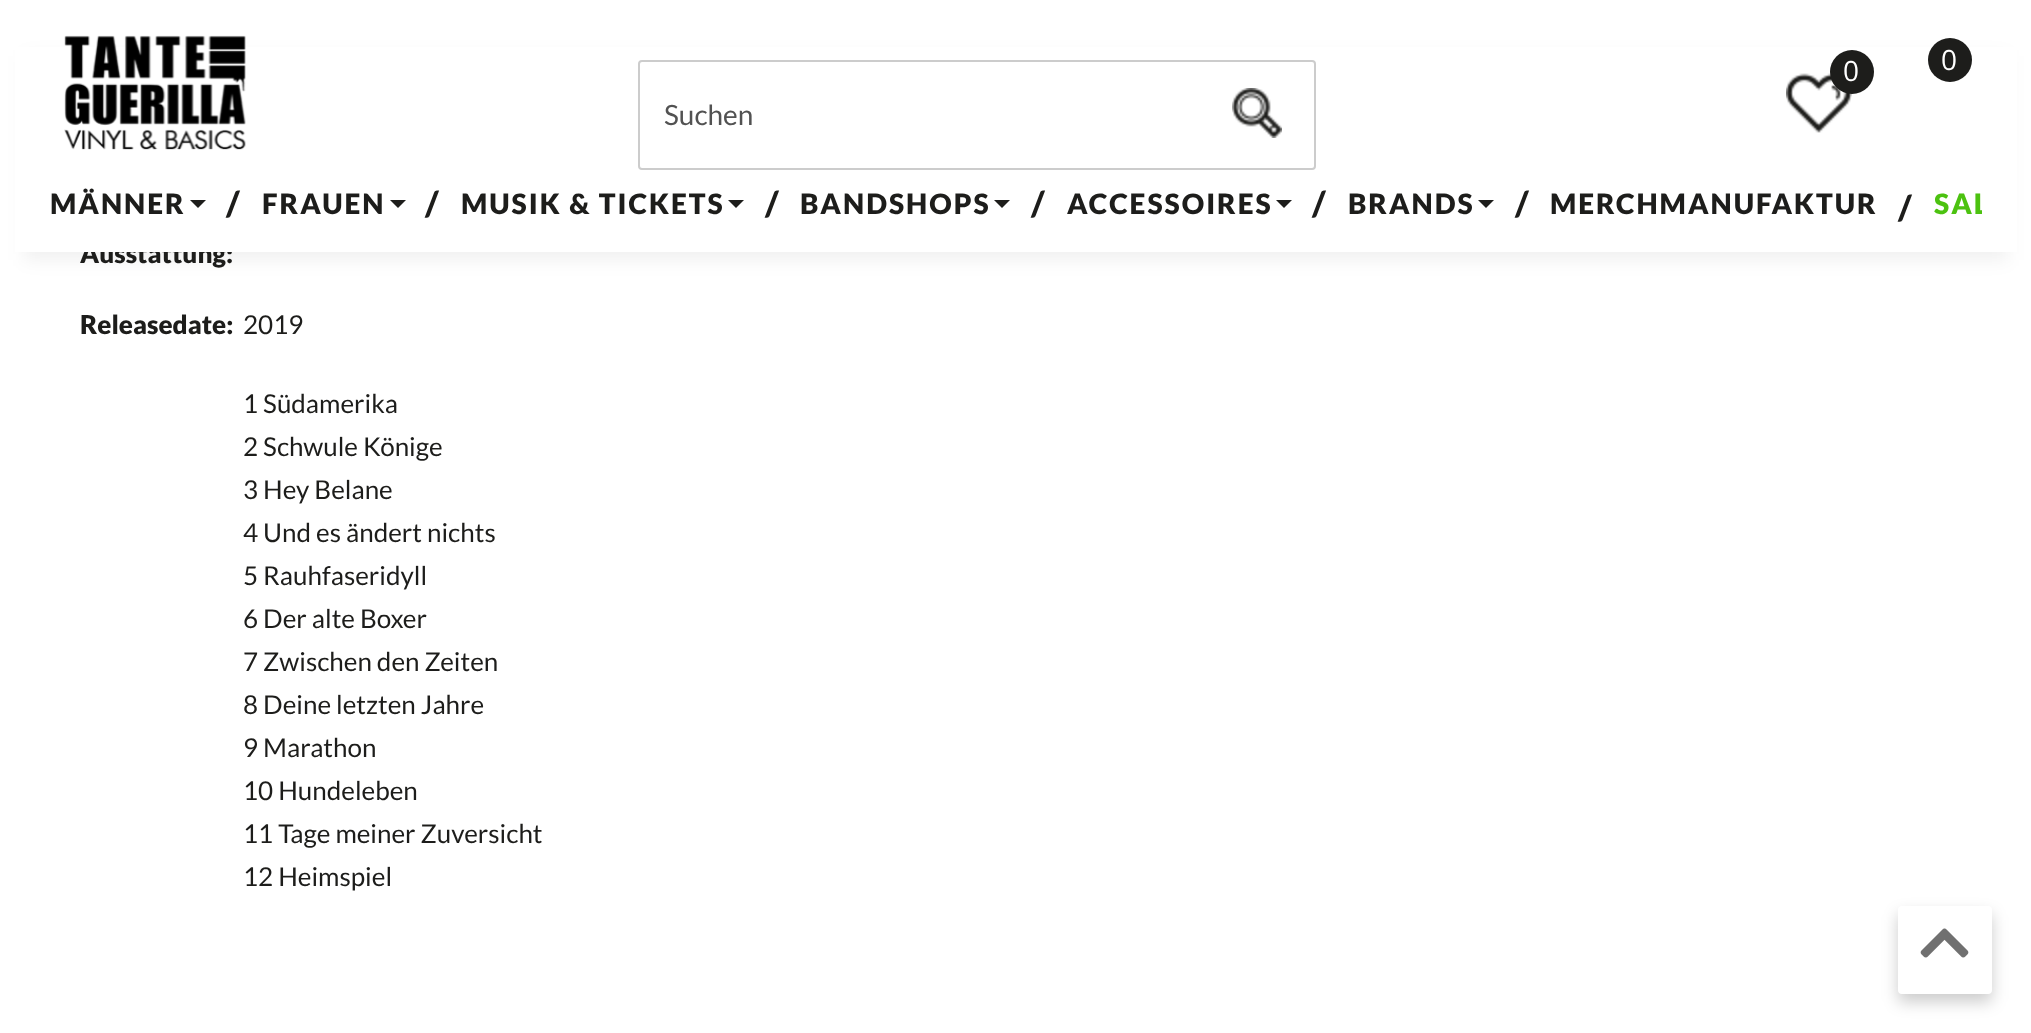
<svg xmlns="http://www.w3.org/2000/svg" width="2031" height="1033" viewBox="0 0 2031 1033">
  <defs>
    <clipPath id="clip1"><rect x="50" y="182" width="1932" height="70"/></clipPath>
  </defs>
  <rect width="100%" height="100%" fill="rgb(255,255,255)"/>
  <rect x="24" y="56" width="1984" height="204" fill="rgba(0,0,0,0.06)" filter="blur(9px)"/>
  <text x="80" y="263" font-family="Lato" font-size="26" font-weight="900" fill="rgb(29,29,27)">Ausstattung:</text>
  <rect x="15" y="47" width="2002" height="205" fill="rgb(255,255,255)"/>
  <image x="64" y="35" width="182" height="115" href="pic1.png"/>
  <image x="1786" y="73" width="66" height="60" href="pic2.png"/>
  <circle cx="1852" cy="72" r="22" fill="rgb(29,29,27)"/>
  <text x="1843" y="81" font-family="Open Sans" font-size="28" letter-spacing="6" fill="rgb(255,255,255)">0</text>
  <circle cx="1950" cy="60" r="22" fill="rgb(29,29,27)"/>
  <text x="1941" y="70" font-family="Open Sans" font-size="28" letter-spacing="6" fill="rgb(255,255,255)">0</text>
  <rect x="639" y="61" width="676" height="108" rx="3" fill="none" stroke="rgb(204,204,204)" stroke-width="2"/>
  <text x="664" y="125" font-family="Lato" font-size="28" fill="rgb(82,82,82)">Suchen</text>
  <image x="1232" y="88" width="50" height="50" href="pic3.png"/>
  <text x="50" y="214" font-family="Lato" font-size="28" font-weight="900" letter-spacing="2" fill="rgb(29,29,27)">MÄNNER</text>
  <path d="M190 200H206L198 208Z" fill="rgb(29,29,27)"/>
  <text x="226" y="216" font-family="Lato" font-size="34" font-weight="900" letter-spacing="2" fill="rgb(29,29,27)">/</text>
  <text x="262" y="214" font-family="Lato" font-size="28" font-weight="900" letter-spacing="2" fill="rgb(29,29,27)">FRAUEN</text>
  <path d="M390 200H406L398 208Z" fill="rgb(29,29,27)"/>
  <text x="425" y="216" font-family="Lato" font-size="34" font-weight="900" letter-spacing="2" fill="rgb(29,29,27)">/</text>
  <text x="461" y="214" font-family="Lato" font-size="28" font-weight="900" letter-spacing="2" fill="rgb(29,29,27)">MUSIK &amp; TICKETS</text>
  <path d="M728 200H744L736 208Z" fill="rgb(29,29,27)"/>
  <text x="765" y="216" font-family="Lato" font-size="34" font-weight="900" letter-spacing="2" fill="rgb(29,29,27)">/</text>
  <text x="800" y="214" font-family="Lato" font-size="28" font-weight="900" letter-spacing="2" fill="rgb(29,29,27)">BANDSHOPS</text>
  <path d="M994 200H1010L1002 208Z" fill="rgb(29,29,27)"/>
  <text x="1031" y="216" font-family="Lato" font-size="34" font-weight="900" letter-spacing="2" fill="rgb(29,29,27)">/</text>
  <text x="1067" y="214" font-family="Lato" font-size="28" font-weight="900" letter-spacing="2" fill="rgb(29,29,27)">ACCESSOIRES</text>
  <path d="M1276 200H1292L1284 208Z" fill="rgb(29,29,27)"/>
  <text x="1312" y="216" font-family="Lato" font-size="34" font-weight="900" letter-spacing="2" fill="rgb(29,29,27)">/</text>
  <text x="1348" y="214" font-family="Lato" font-size="28" font-weight="900" letter-spacing="2" fill="rgb(29,29,27)">BRANDS</text>
  <path d="M1478 200H1494L1486 208Z" fill="rgb(29,29,27)"/>
  <text x="1515" y="216" font-family="Lato" font-size="34" font-weight="900" letter-spacing="2" fill="rgb(29,29,27)">/</text>
  <text x="1550" y="214" font-family="Lato" font-size="28" font-weight="900" letter-spacing="2" fill="rgb(29,29,27)">MERCHMANUFAKTUR</text>
  <text x="1898" y="220" font-family="Lato" font-size="34" font-weight="900" letter-spacing="2" fill="rgb(29,29,27)">/</text>
  <g clip-path="url(#clip1)">
    <text x="1934" y="214" font-family="Lato" font-size="28" font-weight="900" letter-spacing="2" fill="rgb(76,194,16)">SAL</text>
  </g>
  <text x="80" y="334" font-family="Lato" font-size="26" font-weight="900" fill="rgb(29,29,27)">Releasedate:</text>
  <g font-family="Lato" font-size="26" fill="rgb(29,29,27)">
    <text x="243" y="334">2019</text>
    <text>
      <tspan x="243" y="413">1 Südamerika</tspan>
      <tspan x="243" y="456">2 Schwule Könige</tspan>
      <tspan x="243" y="499">3 Hey Belane</tspan>
      <tspan x="243" y="542">4 Und es ändert nichts</tspan>
      <tspan x="243" y="585">5 Rauhfaseridyll</tspan>
      <tspan x="243" y="628">6 Der alte Boxer</tspan>
      <tspan x="243" y="671">7 Zwischen den Zeiten</tspan>
      <tspan x="243" y="714">8 Deine letzten Jahre</tspan>
      <tspan x="243" y="757">9 Marathon</tspan>
      <tspan x="243" y="800">10 Hundeleben</tspan>
      <tspan x="243" y="843">11 Tage meiner Zuversicht</tspan>
      <tspan x="243" y="886">12 Heimspiel</tspan>
    </text>
  </g>
  <rect x="1898" y="914" width="94" height="88" rx="4" fill="rgba(0,0,0,0.2)" filter="blur(8px)"/>
  <rect x="1898" y="906" width="94" height="88" rx="4" fill="rgb(255,255,255)"/>
  <image x="1920" y="928" width="49" height="30" href="pic4.png"/>
</svg>
